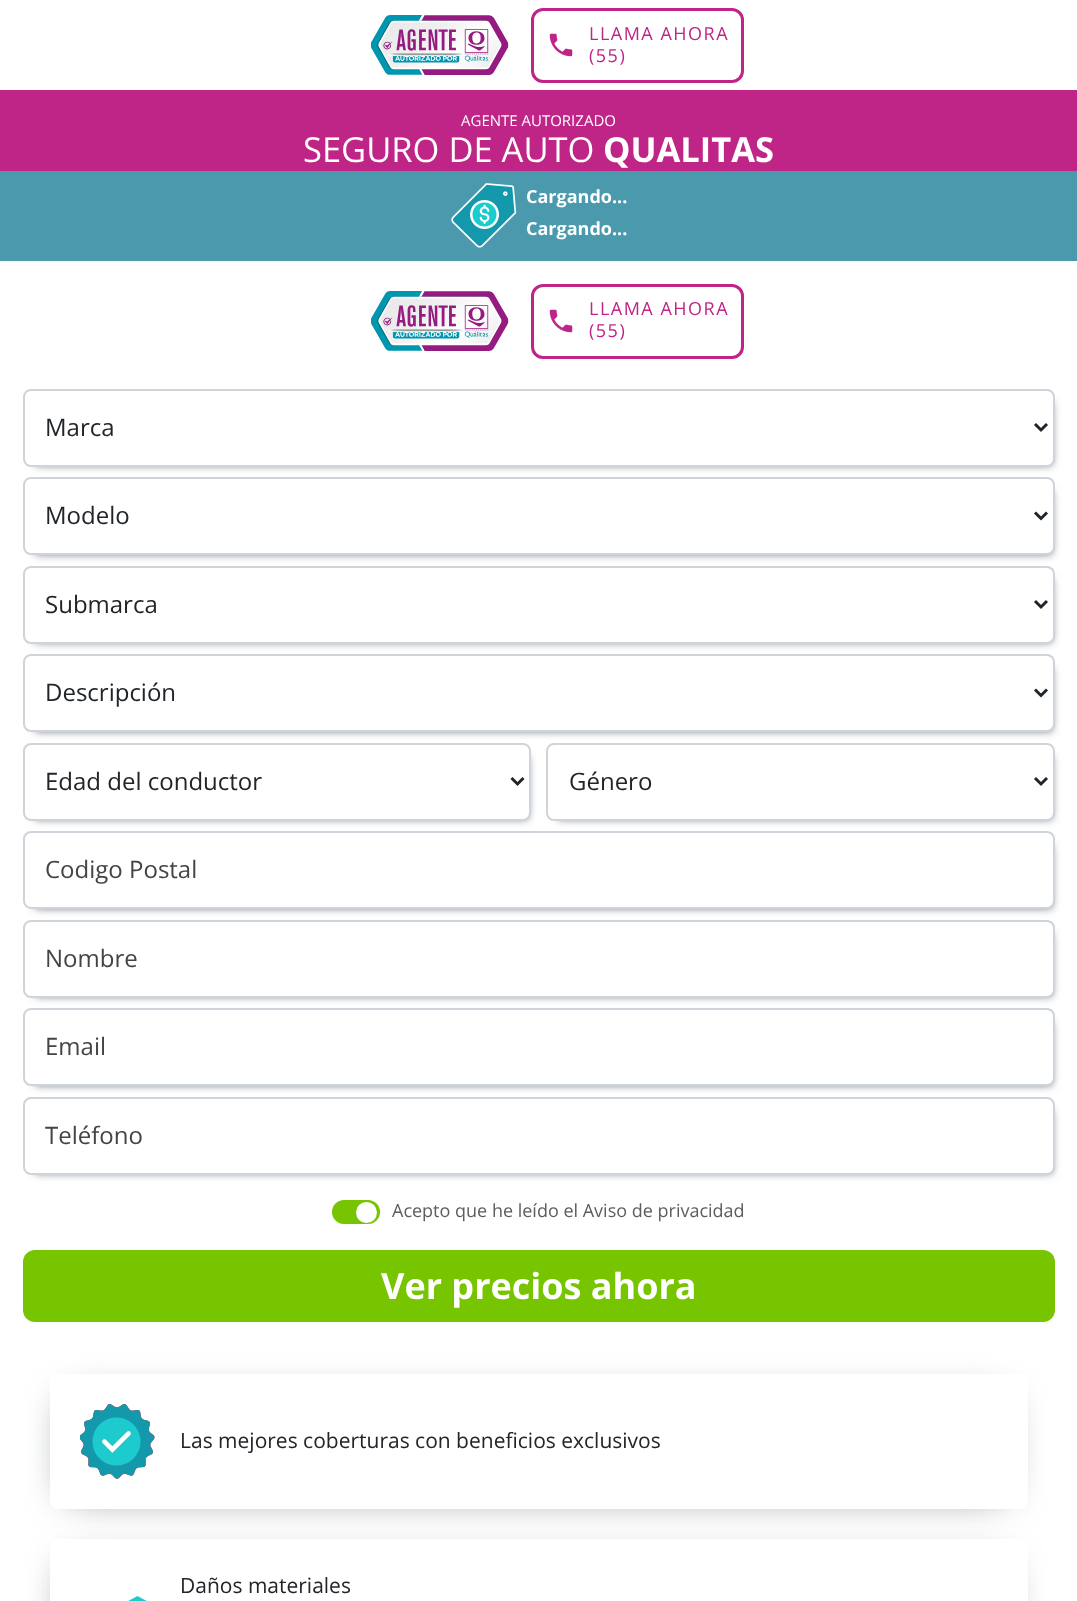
<svg xmlns="http://www.w3.org/2000/svg" width="1077" height="1601" viewBox="0 0 1077 1601">
  <style>*{font-kerning:none!important;font-variant-ligatures:none!important}</style>
  <defs>
    <clipPath id="clip1"><path d="M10 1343H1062V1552H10ZM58 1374H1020C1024.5 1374 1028 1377.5 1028 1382V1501C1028 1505.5 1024.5 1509 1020 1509H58C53.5 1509 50 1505.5 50 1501V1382C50 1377.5 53.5 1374 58 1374Z" clip-rule="evenodd"/></clipPath>
    <clipPath id="clip2"><path d="M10 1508H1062V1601H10ZM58 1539H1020C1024.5 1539 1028 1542.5 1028 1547V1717C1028 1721.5 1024.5 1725 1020 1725H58C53.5 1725 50 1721.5 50 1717V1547C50 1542.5 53.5 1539 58 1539Z" clip-rule="evenodd"/></clipPath>
  </defs>
  <rect width="100%" height="100%" fill="rgb(255,255,255)"/>
  <image x="371" y="15" width="138" height="60" href="pic1.png"/>
  <rect x="532.5" y="9.5" width="210" height="72" rx="10.5" fill="none" stroke="rgb(191,36,135)" stroke-width="3"/>
  <image x="549" y="33" width="24" height="24" href="pic2.png"/>
  <g font-family="Open Sans" font-size="18" letter-spacing="1.5" fill="rgb(191,36,135)">
    <text>
      <tspan x="589" y="40">LLAMA AHORA</tspan>
      <tspan x="589" y="62">(55)</tspan>
    </text>
  </g>
  <rect x="0" y="90" width="1077" height="81" fill="rgb(191,36,135)"/>
  <text x="461" y="126" font-family="Open Sans" font-size="15" fill="rgb(255,255,255)">AGENTE AUTORIZADO</text>
  <text x="303" y="162" font-family="Open Sans" font-size="34.5" fill="rgb(255,255,255)">SEGURO DE AUTO</text>
  <text x="603" y="162" font-family="Open Sans" font-size="34.5" font-weight="bold" fill="rgb(255,255,255)">QUALITAS</text>
  <rect x="0" y="171" width="1077" height="90" fill="rgb(75,153,172)"/>
  <image x="451" y="183" width="66" height="65" href="pic3.png"/>
  <g font-family="Open Sans" font-size="18" font-weight="bold" fill="rgb(255,255,255)">
    <text>
      <tspan x="526" y="203">Cargando...</tspan>
      <tspan x="526" y="235">Cargando...</tspan>
    </text>
  </g>
  <image x="371" y="291" width="138" height="60" href="pic1.png"/>
  <rect x="532.5" y="285.5" width="210" height="72" rx="10.5" fill="none" stroke="rgb(191,36,135)" stroke-width="3"/>
  <image x="549" y="309" width="24" height="24" href="pic2.png"/>
  <g font-family="Open Sans" font-size="18" letter-spacing="1.5" fill="rgb(191,36,135)">
    <text>
      <tspan x="589" y="315">LLAMA AHORA</tspan>
      <tspan x="589" y="337">(55)</tspan>
    </text>
  </g>
  <rect x="35" y="402" width="1017" height="63" fill="rgb(104,111,118)" filter="blur(4px)"/>
  <rect x="24" y="390" width="1030" height="76" rx="7" fill="rgb(255,255,255)" stroke="rgb(206,212,218)" stroke-width="2"/>
  <path d="M1035 424L1041 430L1047 424" fill="none" stroke="rgb(33,37,41)" stroke-width="3"/>
  <text x="45" y="436" font-family="Open Sans" font-size="24" fill="rgb(33,37,41)">Marca</text>
  <rect x="35" y="491" width="1017" height="63" fill="rgb(104,111,118)" filter="blur(4px)"/>
  <rect x="24" y="478" width="1030" height="76" rx="7" fill="rgb(255,255,255)" stroke="rgb(206,212,218)" stroke-width="2"/>
  <path d="M1035 512.5L1041 518.5L1047 512.5" fill="none" stroke="rgb(33,37,41)" stroke-width="3"/>
  <text x="45" y="524" font-family="Open Sans" font-size="24" fill="rgb(33,37,41)">Modelo</text>
  <rect x="35" y="579" width="1017" height="63" fill="rgb(104,111,118)" filter="blur(4px)"/>
  <rect x="24" y="567" width="1030" height="76" rx="7" fill="rgb(255,255,255)" stroke="rgb(206,212,218)" stroke-width="2"/>
  <path d="M1035 601L1041 607L1047 601" fill="none" stroke="rgb(33,37,41)" stroke-width="3"/>
  <text x="45" y="613" font-family="Open Sans" font-size="24" fill="rgb(33,37,41)">Submarca</text>
  <rect x="35" y="756" width="493" height="63" fill="rgb(104,111,118)" filter="blur(4px)"/>
  <rect x="24" y="744" width="506" height="76" rx="7" fill="rgb(255,255,255)" stroke="rgb(206,212,218)" stroke-width="2"/>
  <rect x="558" y="756" width="494" height="63" fill="rgb(104,111,118)" filter="blur(4px)"/>
  <rect x="547" y="744" width="507" height="76" rx="7" fill="rgb(255,255,255)" stroke="rgb(206,212,218)" stroke-width="2"/>
  <rect x="35" y="668" width="1017" height="63" fill="rgb(104,111,118)" filter="blur(4px)"/>
  <rect x="24" y="655" width="1030" height="76" rx="7" fill="rgb(255,255,255)" stroke="rgb(206,212,218)" stroke-width="2"/>
  <path d="M1035 689.5L1041 695.5L1047 689.5" fill="none" stroke="rgb(33,37,41)" stroke-width="3"/>
  <text x="45" y="701" font-family="Open Sans" font-size="24" fill="rgb(33,37,41)">Descripción</text>
  <path d="M511.5 778L517.5 784L523.5 778" fill="none" stroke="rgb(33,37,41)" stroke-width="3"/>
  <text x="45" y="790" font-family="Open Sans" font-size="24" fill="rgb(33,37,41)">Edad del conductor</text>
  <path d="M1035 778L1041 784L1047 778" fill="none" stroke="rgb(33,37,41)" stroke-width="3"/>
  <text x="569" y="790" font-family="Open Sans" font-size="24" fill="rgb(33,37,41)">Género</text>
  <rect x="35" y="845" width="1017" height="63" fill="rgb(104,111,118)" filter="blur(4px)"/>
  <rect x="24" y="832" width="1030" height="76" rx="7" fill="rgb(255,255,255)" stroke="rgb(206,212,218)" stroke-width="2"/>
  <text x="45" y="878" font-family="Open Sans" font-size="24" fill="rgb(68,68,68)">Codigo Postal</text>
  <rect x="35" y="933" width="1017" height="63" fill="rgb(104,111,118)" filter="blur(4px)"/>
  <rect x="24" y="921" width="1030" height="76" rx="7" fill="rgb(255,255,255)" stroke="rgb(206,212,218)" stroke-width="2"/>
  <text x="45" y="967" font-family="Open Sans" font-size="24" fill="rgb(68,68,68)">Nombre</text>
  <rect x="35" y="1022" width="1017" height="63" fill="rgb(104,111,118)" filter="blur(4px)"/>
  <rect x="24" y="1009" width="1030" height="76" rx="7" fill="rgb(255,255,255)" stroke="rgb(206,212,218)" stroke-width="2"/>
  <text x="45" y="1055" font-family="Open Sans" font-size="24" fill="rgb(68,68,68)">Email</text>
  <rect x="35" y="1110" width="1017" height="63" fill="rgb(104,111,118)" filter="blur(4px)"/>
  <rect x="24" y="1098" width="1030" height="76" rx="7" fill="rgb(255,255,255)" stroke="rgb(206,212,218)" stroke-width="2"/>
  <text x="45" y="1144" font-family="Open Sans" font-size="24" fill="rgb(68,68,68)">Teléfono</text>
  <rect x="332" y="1200" width="48" height="24" rx="12" fill="rgb(119,196,0)"/>
  <circle cx="366.5" cy="1212.5" r="10.5" fill="rgb(255,255,255)"/>
  <text x="392" y="1217" font-family="Open Sans" font-size="18" fill="rgb(92,93,94)">Acepto que he leído el Aviso de privacidad</text>
  <rect x="23" y="1250" width="1032" height="72" rx="12" fill="rgb(119,196,0)"/>
  <text x="381" y="1299" font-family="Open Sans" font-size="36" font-weight="bold" fill="rgb(255,255,255)">Ver precios ahora</text>
  <g clip-path="url(#clip1)">
    <rect x="68" y="1401" width="936" height="93" fill="rgb(104,111,118)" filter="blur(19px)"/>
  </g>
  <image x="80" y="1404" width="75" height="75" href="pic4.png"/>
  <text x="180" y="1448" font-family="Open Sans" font-size="21" fill="rgb(33,37,41)">Las mejores coberturas con beneficios exclusivos</text>
  <g clip-path="url(#clip2)">
    <rect x="68" y="1566" width="936" height="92" fill="rgb(104,111,118)" filter="blur(19px)"/>
  </g>
  <text x="180" y="1593" font-family="Open Sans" font-size="21" fill="rgb(33,37,41)">Daños materiales</text>
  <image x="128" y="1596" width="19" height="5" href="pic5.png"/>
</svg>
